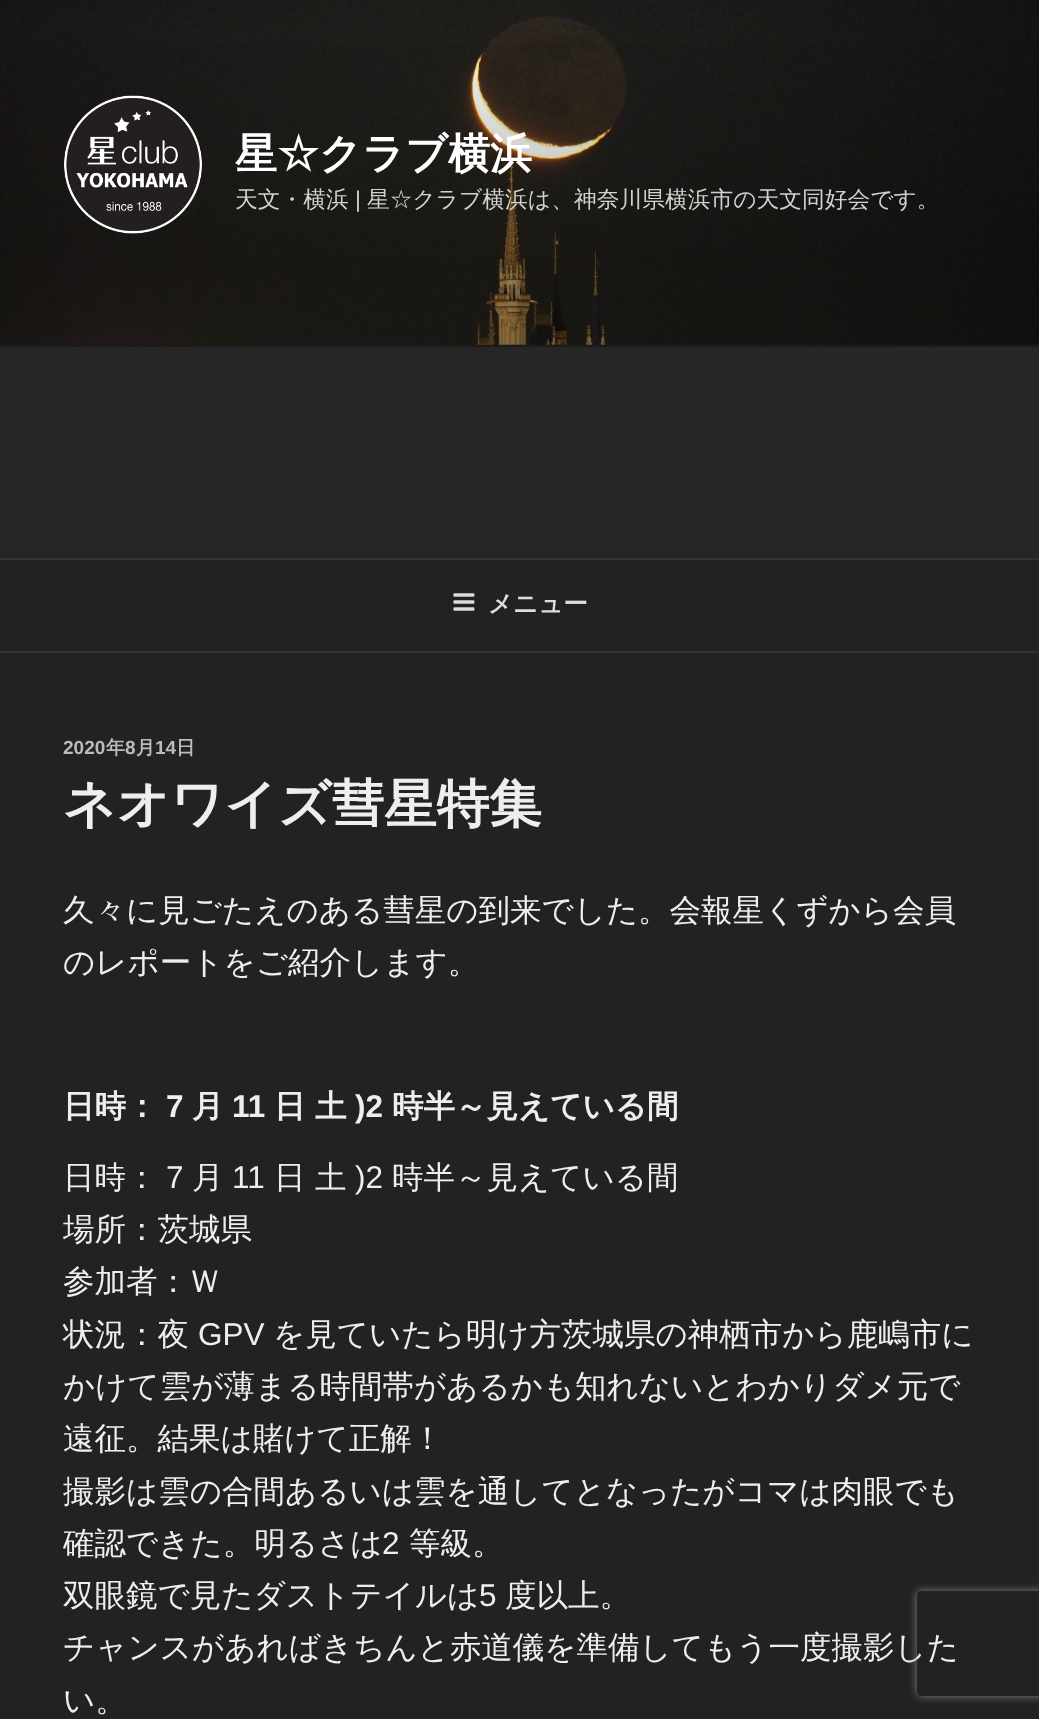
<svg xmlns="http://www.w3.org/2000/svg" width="1039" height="1719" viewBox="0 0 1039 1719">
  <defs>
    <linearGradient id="g1" gradientUnits="userSpaceOnUse" x1="520" y1="0" x2="520" y2="347"><stop offset="0" stop-color="rgb(0,0,0)" stop-opacity="0"/><stop offset="0.75" stop-color="rgb(0,0,0)" stop-opacity="0.3"/><stop offset="1" stop-color="rgb(0,0,0)" stop-opacity="0.3"/></linearGradient>
    <clipPath id="clip1"><path d="M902 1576H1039V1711H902ZM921 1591H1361C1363 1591 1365 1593 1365 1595V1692C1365 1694 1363 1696 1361 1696H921C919 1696 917 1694 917 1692V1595C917 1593 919 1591 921 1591Z" clip-rule="evenodd"/></clipPath>
  </defs>
  <rect width="100%" height="100%" fill="rgb(34,34,34)"/>
  <rect x="0" y="344" width="1039" height="214" fill="rgb(38,38,38)"/>
  <image x="0" y="0" width="1039" height="345" href="pic1.png"/>
  <rect x="0" y="43" width="1039" height="304" fill="url(#g1)"/>
  <image x="64" y="95" width="138" height="139" href="pic2.png"/>
  <text x="235" y="168" font-family="WenQuanYi Zen Hei" font-size="42" font-weight="bold" fill="rgb(255,255,255)">星☆クラブ横浜</text>
  <text x="235" y="207" font-family="WenQuanYi Zen Hei" font-size="22.75" font-weight="500" fill="rgb(209,209,208)">天文・横浜</text>
  <text x="355" y="207" font-family="Liberation Sans" font-size="22.75" fill="rgb(209,209,208)">|</text>
  <text x="367" y="207" font-family="WenQuanYi Zen Hei" font-size="22.75" font-weight="500" fill="rgb(209,209,208)">星☆クラブ横浜は、神奈川県横浜市の天文同好会です。</text>
  <rect x="0" y="558" width="1039" height="2" fill="rgb(51,51,51)"/>
  <rect x="0" y="651" width="1039" height="2" fill="rgb(51,51,51)"/>
  <image x="453" y="593" width="22" height="18" href="pic3.png"/>
  <text x="488" y="612" font-family="WenQuanYi Zen Hei" font-size="24.5" font-weight="bold" fill="rgb(221,221,221)">メニュー</text>
  <text x="63" y="754" font-family="Liberation Sans" font-size="19" font-weight="bold" fill="rgb(187,187,187)">2020</text>
  <text x="106" y="754" font-family="WenQuanYi Zen Hei" font-size="19" font-weight="bold" fill="rgb(187,187,187)">年</text>
  <text x="125" y="754" font-family="Liberation Sans" font-size="19" font-weight="bold" fill="rgb(187,187,187)">8</text>
  <text x="136" y="754" font-family="WenQuanYi Zen Hei" font-size="19" font-weight="bold" fill="rgb(187,187,187)">月</text>
  <text x="155" y="754" font-family="Liberation Sans" font-size="19" font-weight="bold" fill="rgb(187,187,187)">14</text>
  <text x="176" y="754" font-family="WenQuanYi Zen Hei" font-size="19" font-weight="bold" fill="rgb(187,187,187)">日</text>
  <text x="63" y="822" font-family="WenQuanYi Zen Hei" font-size="52.5" font-weight="bold" fill="rgb(238,238,238)">ネオワイズ彗星特集</text>
  <g font-family="WenQuanYi Zen Hei" font-size="31.5" font-weight="500" fill="rgb(238,238,238)">
    <text>
      <tspan x="63" y="921">久々に見ごたえのある彗星の到来でした。会報星くずから会員</tspan>
      <tspan x="63" y="973">のレポートをご紹介します。</tspan>
    </text>
  </g>
  <text x="63" y="1117" font-family="WenQuanYi Zen Hei" font-size="31.5" font-weight="bold" fill="rgb(238,238,238)">日時：</text>
  <text x="166" y="1117" font-family="Liberation Sans" font-size="31.5" font-weight="bold" fill="rgb(238,238,238)">7</text>
  <text x="192" y="1117" font-family="WenQuanYi Zen Hei" font-size="31.5" font-weight="bold" fill="rgb(238,238,238)">月</text>
  <text x="232" y="1117" font-family="Liberation Sans" font-size="31.5" font-weight="bold" fill="rgb(238,238,238)">11</text>
  <text x="274" y="1117" font-family="WenQuanYi Zen Hei" font-size="31.5" font-weight="bold" fill="rgb(238,238,238)">日 土</text>
  <text x="355" y="1117" font-family="Liberation Sans" font-size="31.5" font-weight="bold" fill="rgb(238,238,238)">)2</text>
  <text x="392" y="1117" font-family="WenQuanYi Zen Hei" font-size="31.5" font-weight="bold" fill="rgb(238,238,238)">時半～見えている間</text>
  <text x="63" y="1188" font-family="WenQuanYi Zen Hei" font-size="31.5" font-weight="500" fill="rgb(238,238,238)">日時：</text>
  <text x="166" y="1188" font-family="Liberation Sans" font-size="31.5" fill="rgb(238,238,238)">7</text>
  <text x="192" y="1188" font-family="WenQuanYi Zen Hei" font-size="31.5" font-weight="500" fill="rgb(238,238,238)">月</text>
  <text x="232" y="1188" font-family="Liberation Sans" font-size="31.5" fill="rgb(238,238,238)">11</text>
  <text x="274" y="1188" font-family="WenQuanYi Zen Hei" font-size="31.5" font-weight="500" fill="rgb(238,238,238)">日 土</text>
  <text x="355" y="1188" font-family="Liberation Sans" font-size="31.5" fill="rgb(238,238,238)">)2</text>
  <g font-family="WenQuanYi Zen Hei" font-size="31.5" font-weight="500" fill="rgb(238,238,238)">
    <text x="392" y="1188">時半～見えている間</text>
    <text>
      <tspan x="63" y="1240">場所：茨城県</tspan>
      <tspan x="63" y="1292">参加者：Ｗ</tspan>
      <tspan x="63" y="1345">状況：夜</tspan>
    </text>
  </g>
  <text x="198" y="1345" font-family="Liberation Sans" font-size="31.5" fill="rgb(238,238,238)">GPV</text>
  <g font-family="WenQuanYi Zen Hei" font-size="31.5" font-weight="500" fill="rgb(238,238,238)">
    <text x="273" y="1345">を見ていたら明け方茨城県の神栖市から鹿嶋市に</text>
    <text>
      <tspan x="63" y="1397">かけて雲が薄まる時間帯があるかも知れないとわかりダメ元で</tspan>
      <tspan x="63" y="1449">遠征。結果は賭けて正解！</tspan>
      <tspan x="63" y="1502">撮影は雲の合間あるいは雲を通してとなったがコマは肉眼でも</tspan>
      <tspan x="63" y="1554">確認できた。明るさは</tspan>
    </text>
  </g>
  <text x="382" y="1554" font-family="Liberation Sans" font-size="31.5" fill="rgb(238,238,238)">2</text>
  <g font-family="WenQuanYi Zen Hei" font-size="31.5" font-weight="500" fill="rgb(238,238,238)">
    <text x="409" y="1554">等級。</text>
    <text x="63" y="1606">双眼鏡で見たダストテイルは</text>
  </g>
  <text x="479" y="1606" font-family="Liberation Sans" font-size="31.5" fill="rgb(238,238,238)">5</text>
  <g font-family="WenQuanYi Zen Hei" font-size="31.5" font-weight="500" fill="rgb(238,238,238)">
    <text x="505" y="1606">度以上。</text>
    <text>
      <tspan x="63" y="1658">チャンスがあればきちんと赤道儀を準備してもう一度撮影した</tspan>
      <tspan x="63" y="1711">い。</tspan>
    </text>
  </g>
  <g clip-path="url(#clip1)">
    <rect x="917" y="1591" width="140" height="105" rx="4" fill="rgb(128,128,128)" filter="blur(4.5px)"/>
  </g>
</svg>
